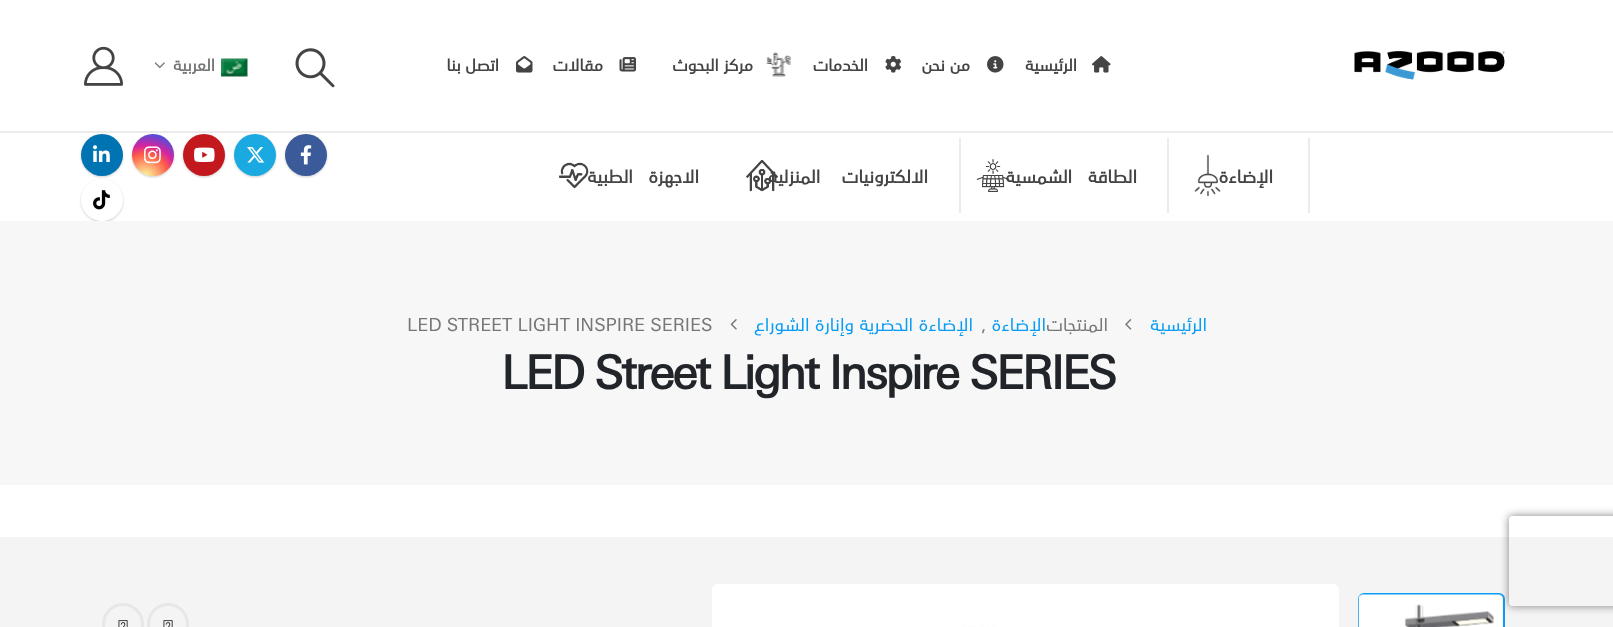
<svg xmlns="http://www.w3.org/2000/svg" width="1613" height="627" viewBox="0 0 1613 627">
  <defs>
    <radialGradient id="g1" gradientUnits="userSpaceOnUse" cx="145" cy="178" r="54"><stop offset="0" stop-color="rgb(253,244,151)"/><stop offset="0.05" stop-color="rgb(253,244,151)"/><stop offset="0.45" stop-color="rgb(253,89,73)"/><stop offset="0.6" stop-color="rgb(214,36,159)"/><stop offset="0.9" stop-color="rgb(40,90,235)"/></radialGradient>
    <clipPath id="clip1"><path d="M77 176H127V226H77ZM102 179C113.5 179 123 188.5 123 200C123 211.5 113.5 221 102 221C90.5 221 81 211.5 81 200C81 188.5 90.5 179 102 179Z" clip-rule="evenodd"/></clipPath>
    <clipPath id="clip2"><path d="M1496 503H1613V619H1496ZM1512 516H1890C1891.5 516 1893 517.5 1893 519V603C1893 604.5 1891.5 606 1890 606H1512C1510.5 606 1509 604.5 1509 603V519C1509 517.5 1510.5 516 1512 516Z" clip-rule="evenodd"/></clipPath>
  </defs>
  <rect width="100%" height="100%" fill="rgb(255,255,255)"/>
  <image x="1354" y="51" width="151" height="29" href="pic1.png"/>
  <image x="1092" y="56" width="19" height="17" href="pic2.png"/>
  <text x="1077" y="71" font-family="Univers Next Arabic" font-size="16.5" font-weight="bold" direction="rtl" fill="rgb(68,68,68)">الرئيسية</text>
  <image x="987" y="56" width="17" height="17" href="pic3.png"/>
  <text x="970" y="71" font-family="Univers Next Arabic" font-size="16.5" font-weight="bold" direction="rtl" fill="rgb(68,68,68)">من نحن</text>
  <image x="885" y="56" width="16" height="17" href="pic4.png"/>
  <text x="868" y="71" font-family="Univers Next Arabic" font-size="16.5" font-weight="bold" direction="rtl" fill="rgb(68,68,68)">الخدمات</text>
  <image x="766" y="52" width="25" height="25" href="pic5.png"/>
  <text x="753" y="71" font-family="Univers Next Arabic" font-size="16.5" font-weight="bold" direction="rtl" fill="rgb(68,68,68)">مركز البحوث</text>
  <image x="619" y="57" width="17" height="15" href="pic6.png"/>
  <text x="603" y="71" font-family="Univers Next Arabic" font-size="16.5" font-weight="bold" direction="rtl" fill="rgb(68,68,68)">مقالات</text>
  <image x="516" y="56" width="17" height="17" href="pic7.png"/>
  <text x="499" y="71" font-family="Univers Next Arabic" font-size="16.5" font-weight="bold" direction="rtl" fill="rgb(68,68,68)">اتصل بنا</text>
  <image x="295" y="48" width="40" height="40" href="pic8.png"/>
  <image x="221" y="58" width="27" height="19" href="pic9.png"/>
  <text x="215" y="71" font-family="Univers Next Arabic" font-size="16.5" font-weight="bold" direction="rtl" fill="rgb(119,119,119)">العربية</text>
  <image x="154" y="62" width="11" height="7" href="pic10.png"/>
  <image x="84" y="46" width="39" height="40" href="pic11.png"/>
  <rect x="0" y="131" width="1613" height="2" fill="rgb(235,235,235)"/>
  <image x="1194" y="154" width="27" height="43" href="pic12.png"/>
  <rect x="1308" y="138" width="2" height="75" fill="rgb(235,235,235)"/>
  <text x="1273" y="183" font-family="Univers Next Arabic" font-size="18" font-weight="bold" letter-spacing="-0.75" direction="rtl" fill="rgb(68,68,68)">الإضاءة</text>
  <image x="976" y="159" width="34" height="33" href="pic13.png"/>
  <rect x="1167" y="138" width="2" height="75" fill="rgb(235,235,235)"/>
  <text x="1137" y="183" word-spacing="10" font-family="Univers Next Arabic" font-size="18" font-weight="bold" letter-spacing="-0.75" direction="rtl" fill="rgb(68,68,68)">الطاقة الشمسية</text>
  <image x="746" y="160" width="32" height="32" href="pic14.png"/>
  <rect x="959" y="138" width="2" height="75" fill="rgb(235,235,235)"/>
  <text x="928" y="183" word-spacing="16" font-family="Univers Next Arabic" font-size="18" font-weight="bold" letter-spacing="-0.75" direction="rtl" fill="rgb(68,68,68)">الالكترونيات المنزلية</text>
  <image x="559" y="162" width="30" height="27" href="pic15.png"/>
  <text x="699" y="183" word-spacing="10" font-family="Univers Next Arabic" font-size="18" font-weight="bold" letter-spacing="-0.75" direction="rtl" fill="rgb(68,68,68)">الاجهزة الطبية</text>
  <rect x="285" y="135" width="42" height="42" rx="21" fill="rgba(0,0,0,0.2)" filter="blur(1px)"/>
  <circle cx="306" cy="155" r="21" fill="rgb(59,90,154)"/>
  <image x="300" y="145" width="12" height="20" href="pic16.png"/>
  <rect x="234" y="135" width="42" height="42" rx="21" fill="rgba(0,0,0,0.2)" filter="blur(1px)"/>
  <circle cx="255" cy="155" r="21" fill="rgb(26,169,225)"/>
  <image x="247" y="147" width="18" height="16" href="pic17.png"/>
  <rect x="183" y="135" width="42" height="42" rx="21" fill="rgba(0,0,0,0.2)" filter="blur(1px)"/>
  <circle cx="204" cy="155" r="21" fill="rgb(195,25,30)"/>
  <image x="194" y="147" width="21" height="15" href="pic18.png"/>
  <rect x="132" y="135" width="42" height="42" rx="21" fill="rgba(0,0,0,0.2)" filter="blur(1px)"/>
  <circle cx="153" cy="155" r="21" fill="url(#g1)"/>
  <image x="144" y="146" width="17" height="18" href="pic19.png"/>
  <rect x="81" y="135" width="42" height="42" rx="21" fill="rgba(0,0,0,0.2)" filter="blur(1px)"/>
  <circle cx="102" cy="155" r="21" fill="rgb(0,115,178)"/>
  <image x="93" y="145" width="17" height="17" href="pic20.png"/>
  <g clip-path="url(#clip1)">
    <rect x="81" y="180" width="42" height="42" rx="21" fill="rgba(0,0,0,0.2)" filter="blur(1px)"/>
  </g>
  <image x="93" y="190" width="17" height="20" href="pic21.png"/>
  <rect x="0" y="221" width="1613" height="264" fill="rgb(247,247,247)"/>
  <text x="1207" y="331" font-family="Univers Next Arabic" font-size="18" direction="rtl" fill="rgb(9,156,244)">الرئيسية</text>
  <image x="1125" y="319" width="7" height="11" href="pic22.png"/>
  <text x="1108" y="331" font-family="Univers Next Arabic" font-size="18" direction="rtl" fill="rgb(119,119,119)">المنتجات</text>
  <g font-family="Univers Next Arabic" font-size="18" direction="rtl" fill="rgb(9,156,244)">
    <text x="1046" y="331">الإضاءة</text>
    <text x="973" y="331">الإضاءة الحضرية وإنارة الشوراع</text>
  </g>
  <image x="730" y="319" width="7" height="11" href="pic23.png"/>
  <g font-family="Univers Next Arabic" font-size="18" fill="rgb(119,119,119)">
    <text x="981" y="331">,</text>
    <text x="407" y="331">LED STREET LIGHT INSPIRE SERIES</text>
  </g>
  <text x="501" y="389" font-family="Univers Next Arabic" font-size="46.25" font-weight="bold" letter-spacing="-2.3" fill="rgb(33,37,41)">LED Street Light Inspire SERIES</text>
  <rect x="0" y="537" width="1505" height="90" fill="rgb(244,244,244)"/>
  <rect x="1350" y="585" width="162" height="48" rx="6" fill="rgb(244,244,244)"/>
  <rect x="1505" y="537" width="108" height="90" fill="rgb(244,244,244)"/>
  <rect x="1359" y="594" width="145" height="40" rx="5" fill="none" stroke="rgb(9,156,244)" stroke-width="2"/>
  <image x="1358" y="594" width="145" height="33" href="pic24.png"/>
  <image x="712" y="584" width="627" height="43" href="pic25.png"/>
  <circle cx="168" cy="624" r="19.5" fill="none" stroke="rgb(231,231,231)" stroke-width="3"/>
  <image x="163" y="620" width="10" height="7" href="pic26.png"/>
  <circle cx="123" cy="624" r="19.5" fill="none" stroke="rgb(231,231,231)" stroke-width="3"/>
  <image x="118" y="620" width="10" height="7" href="pic26.png"/>
  <g clip-path="url(#clip2)">
    <rect x="1509" y="516" width="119" height="90" rx="3" fill="rgb(128,128,128)" filter="blur(4px)"/>
  </g>
</svg>
